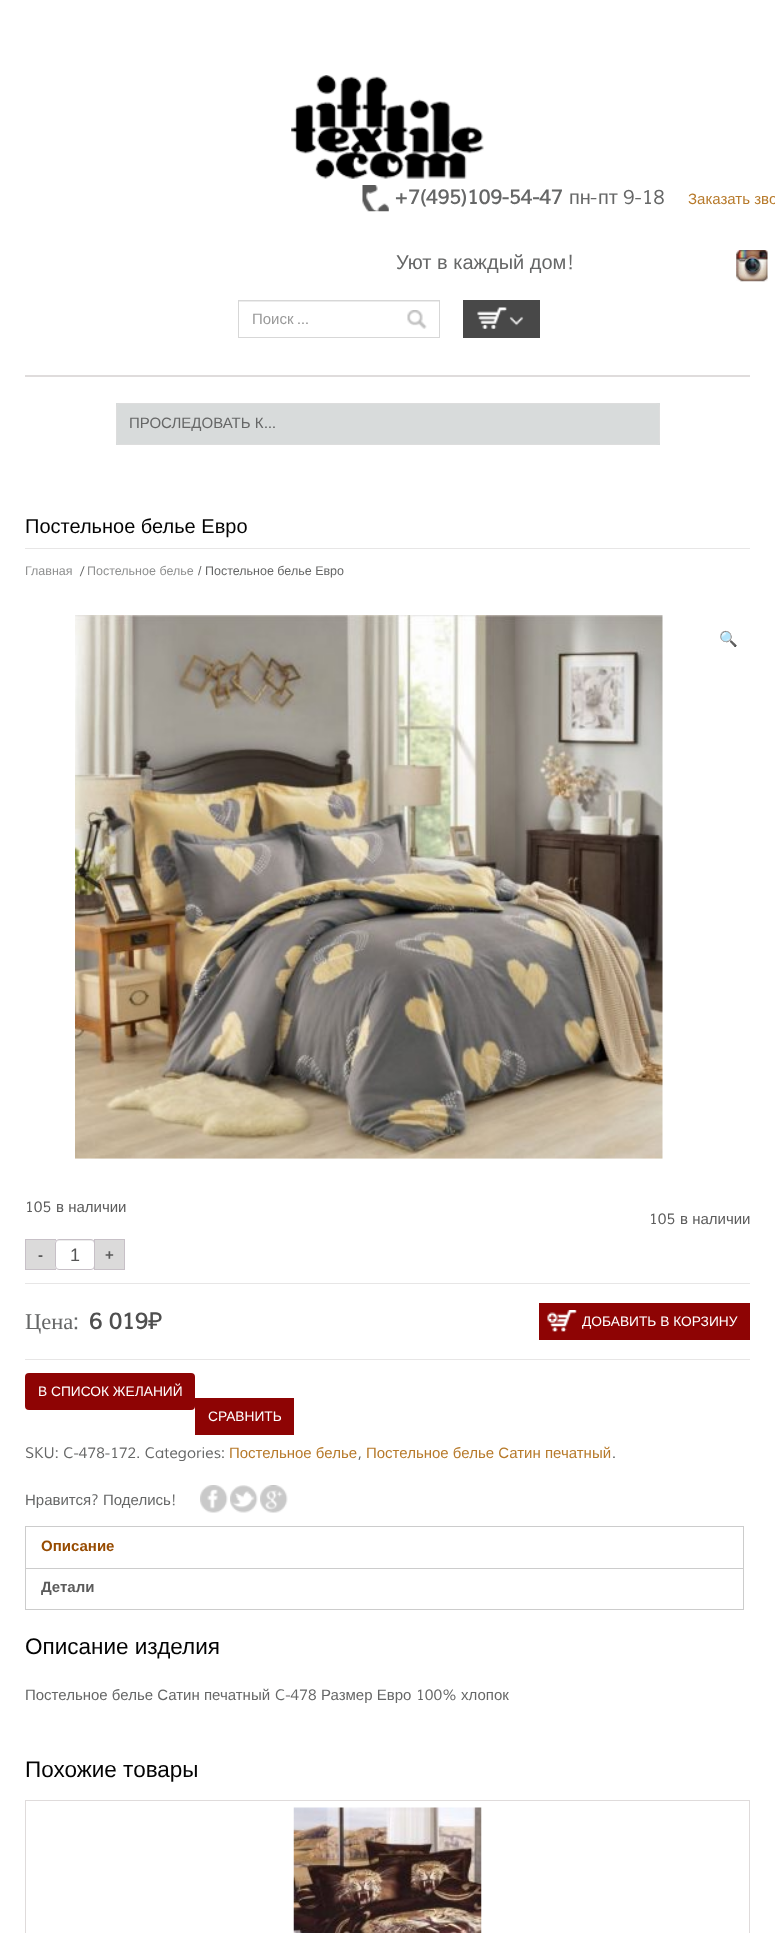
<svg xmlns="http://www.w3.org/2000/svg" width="775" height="1933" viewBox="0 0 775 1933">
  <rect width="100%" height="100%" fill="rgb(255,255,255)"/>
  <image x="291" y="75" width="193" height="104" href="pic1.png"/>
  <image x="362" y="185" width="27" height="27" href="pic2.png"/>
  <text x="394" y="204" font-family="Muli" font-size="20" font-weight="bold" font-style="italic" fill="rgb(102,103,103)">+7(495)109-54-47</text>
  <text x="569" y="204" font-family="Liberation Sans" font-size="20" fill="rgb(102,103,103)">пн</text>
  <text x="590" y="204" font-family="Muli" font-size="20" font-style="italic" fill="rgb(102,103,103)">-</text>
  <text x="598" y="204" font-family="Liberation Sans" font-size="20" fill="rgb(102,103,103)">пт</text>
  <text x="623" y="204" font-family="Muli" font-size="20" font-style="italic" fill="rgb(102,103,103)">9-18</text>
  <text x="688" y="204" font-family="Liberation Sans" font-size="15" fill="rgb(183,122,43)">Заказать зво</text>
  <text x="396" y="269" font-family="Liberation Sans" font-size="20" fill="rgb(102,103,103)">Уют в каждый дом</text>
  <text x="567" y="269" font-family="Muli" font-size="20" font-style="italic" fill="rgb(102,103,103)">!</text>
  <image x="736" y="250" width="32" height="32" href="pic3.png"/>
  <image x="407" y="310" width="20" height="19" href="pic4.png"/>
  <rect x="239" y="301" width="200" height="1" fill="rgb(236,236,236)"/>
  <rect x="238.5" y="300.5" width="201" height="37" fill="none" stroke="rgb(215,215,215)"/>
  <text x="252" y="324" font-family="Liberation Sans" font-size="15" fill="rgb(153,153,153)">Поиск</text>
  <text x="297" y="324" font-family="Muli" font-size="15" font-style="italic" fill="rgb(153,153,153)">...</text>
  <rect x="463" y="300" width="77" height="38" fill="rgb(72,72,72)"/>
  <image x="477" y="307" width="47" height="23" href="pic5.png"/>
  <rect x="25" y="375" width="725" height="2" fill="rgb(223,220,220)"/>
  <rect x="116" y="403" width="544" height="42" fill="rgb(216,219,219)"/>
  <rect x="116.5" y="403.5" width="543" height="41" rx="3.5" fill="none" stroke="rgb(221,221,221)"/>
  <text x="129" y="428" font-family="Liberation Sans" font-size="15" fill="rgb(102,103,103)">ПРОСЛЕДОВАТЬ К</text>
  <text x="264" y="428" font-family="Muli" font-size="15" font-style="italic" fill="rgb(102,103,103)">...</text>
  <rect x="25" y="548" width="725" height="1" fill="rgb(231,230,230)"/>
  <text x="25" y="533" font-family="Liberation Sans" font-size="20" fill="rgb(3,3,3)">Постельное белье Евро</text>
  <text x="25" y="575" font-family="Liberation Sans" font-size="12.5" fill="rgb(143,144,144)">Главная</text>
  <text x="80" y="575" font-family="Muli" font-size="12.5" font-style="italic" fill="rgb(102,103,103)">/</text>
  <text x="87" y="575" font-family="Liberation Sans" font-size="12.5" fill="rgb(143,144,144)">Постельное белье</text>
  <text x="198" y="575" font-family="Liberation Sans" font-size="12.5" fill="rgb(102,103,103)">/ Постельное белье Евро</text>
  <image x="75" y="615" width="588" height="544" href="pic6.png"/>
  <text x="719" y="644" font-family="Noto Color Emoji" font-size="15" fill="rgb(183,122,43)">🔍</text>
  <text x="25" y="1212" font-family="Muli" font-size="15" font-style="italic" fill="rgb(91,91,91)">105</text>
  <text x="56" y="1212" font-family="Liberation Sans" font-size="15" fill="rgb(91,91,91)">в наличии</text>
  <text x="649" y="1224" font-family="Muli" font-size="15" font-style="italic" fill="rgb(91,91,91)">105</text>
  <text x="680" y="1224" font-family="Liberation Sans" font-size="15" fill="rgb(91,91,91)">в наличии</text>
  <rect x="25.5" y="1239.5" width="30" height="30" fill="rgb(219,218,218)" stroke="rgb(199,192,199)"/>
  <text x="38" y="1260" font-family="Liberation Sans" font-size="15" font-weight="bold" fill="rgb(91,91,91)">-</text>
  <rect x="55" y="1239" width="40" height="31" rx="4" fill="rgb(255,255,255)"/>
  <path d="M59 1241H91C93 1241 94 1242 94 1244C94 1238.5 91 1240 86 1240H64C59 1240 56 1238.5 56 1244C56 1242 57 1241 59 1241Z" fill="rgb(236,236,236)"/>
  <rect x="55.5" y="1239.5" width="39" height="30" rx="3.5" fill="none" stroke="rgb(199,192,199)"/>
  <text x="70" y="1261" font-family="Liberation Sans" font-size="18" fill="rgb(85,85,85)">1</text>
  <rect x="94.5" y="1239.5" width="30" height="30" fill="rgb(219,218,218)" stroke="rgb(199,192,199)"/>
  <text x="105" y="1260" font-family="Liberation Sans" font-size="15" font-weight="bold" fill="rgb(91,91,91)">+</text>
  <rect x="25" y="1283" width="725" height="1" fill="rgb(231,230,230)"/>
  <rect x="25" y="1359" width="725" height="1" fill="rgb(231,230,230)"/>
  <text x="25" y="1329" font-family="Liberation Serif" font-size="22.5" fill="rgb(102,103,103)">Цена</text>
  <text x="73" y="1329" font-family="Muli" font-size="22.5" font-style="italic" fill="rgb(102,103,103)">:</text>
  <text x="89" y="1329" font-family="Muli" font-size="22.5" font-weight="bold" font-style="italic" fill="rgb(79,79,79)">6 019</text>
  <text x="148" y="1329" font-family="Muli" font-size="22.5" font-weight="bold" fill="rgb(79,79,79)">₽</text>
  <rect x="539" y="1303" width="211" height="37" fill="rgb(142,4,4)"/>
  <image x="547" y="1310" width="30" height="22" href="pic7.png"/>
  <text x="582" y="1326" font-family="Liberation Sans" font-size="13.75" fill="rgb(255,255,255)">ДОБАВИТЬ В КОРЗИНУ</text>
  <rect x="25" y="1373" width="170" height="37" rx="4" fill="rgb(142,4,4)"/>
  <text x="38" y="1396" font-family="Liberation Sans" font-size="13.75" fill="rgb(255,255,255)">В СПИСОК ЖЕЛАНИЙ</text>
  <rect x="195" y="1398" width="99" height="37" fill="rgb(142,4,4)"/>
  <text x="208" y="1421" font-family="Liberation Sans" font-size="13.75" fill="rgb(255,255,255)">СРАВНИТЬ</text>
  <text x="25" y="1458" font-family="Muli" font-size="15" font-style="italic" fill="rgb(102,103,103)">SKU: C-478-172. Categories:</text>
  <text x="229" y="1458" font-family="Liberation Sans" font-size="15" fill="rgb(183,122,43)">Постельное белье</text>
  <text x="358" y="1458" font-family="Muli" font-size="15" font-style="italic" fill="rgb(102,103,103)">,</text>
  <text x="366" y="1458" font-family="Liberation Sans" font-size="15" fill="rgb(183,122,43)">Постельное белье Сатин печатный</text>
  <text x="612" y="1458" font-family="Muli" font-size="15" font-style="italic" fill="rgb(102,103,103)">.</text>
  <text x="25" y="1505" font-family="Liberation Sans" font-size="15" fill="rgb(102,103,103)">Нравится</text>
  <text x="91" y="1505" font-family="Muli" font-size="15" font-style="italic" fill="rgb(102,103,103)">?</text>
  <text x="103" y="1505" font-family="Liberation Sans" font-size="15" fill="rgb(102,103,103)">Поделись</text>
  <text x="171" y="1505" font-family="Muli" font-size="15" font-style="italic" fill="rgb(102,103,103)">!</text>
  <image x="200" y="1485" width="28" height="28" href="pic8.png"/>
  <image x="230" y="1485" width="28" height="28" href="pic9.png"/>
  <image x="260" y="1485" width="28" height="28" href="pic10.png"/>
  <rect x="25" y="1526" width="719" height="1" fill="rgb(204,204,204)"/>
  <rect x="743" y="1526" width="1" height="42" fill="rgb(204,204,204)"/>
  <rect x="25" y="1526" width="1" height="42" fill="rgb(204,204,204)"/>
  <text x="41" y="1551" font-family="Liberation Sans" font-size="15" font-weight="bold" fill="rgb(151,75,0)">Описание</text>
  <rect x="25.5" y="1568.5" width="718" height="41" fill="none" stroke="rgb(204,204,204)"/>
  <text x="41" y="1592" font-family="Liberation Sans" font-size="15" font-weight="bold" fill="rgb(91,91,91)">Детали</text>
  <text x="25" y="1654" font-family="Liberation Sans" font-size="22.5" fill="rgb(3,3,3)">Описание изделия</text>
  <text x="25" y="1700" font-family="Liberation Sans" font-size="15" fill="rgb(102,103,103)">Постельное белье Сатин печатный</text>
  <text x="275" y="1700" font-family="Muli" font-size="15" font-style="italic" fill="rgb(102,103,103)">C-478</text>
  <text x="321" y="1700" font-family="Liberation Sans" font-size="15" fill="rgb(102,103,103)">Размер Евро</text>
  <text x="416" y="1700" font-family="Muli" font-size="15" font-style="italic" fill="rgb(102,103,103)">100%</text>
  <text x="461" y="1700" font-family="Liberation Sans" font-size="15" fill="rgb(102,103,103)">хлопок</text>
  <text x="25" y="1777" font-family="Liberation Sans" font-size="22.5" fill="rgb(3,3,3)">Похожие товары</text>
  <rect x="25.5" y="1800.5" width="724" height="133" fill="none" stroke="rgb(223,219,219)"/>
  <image x="293" y="1807" width="189" height="126" href="pic11.png"/>
</svg>
